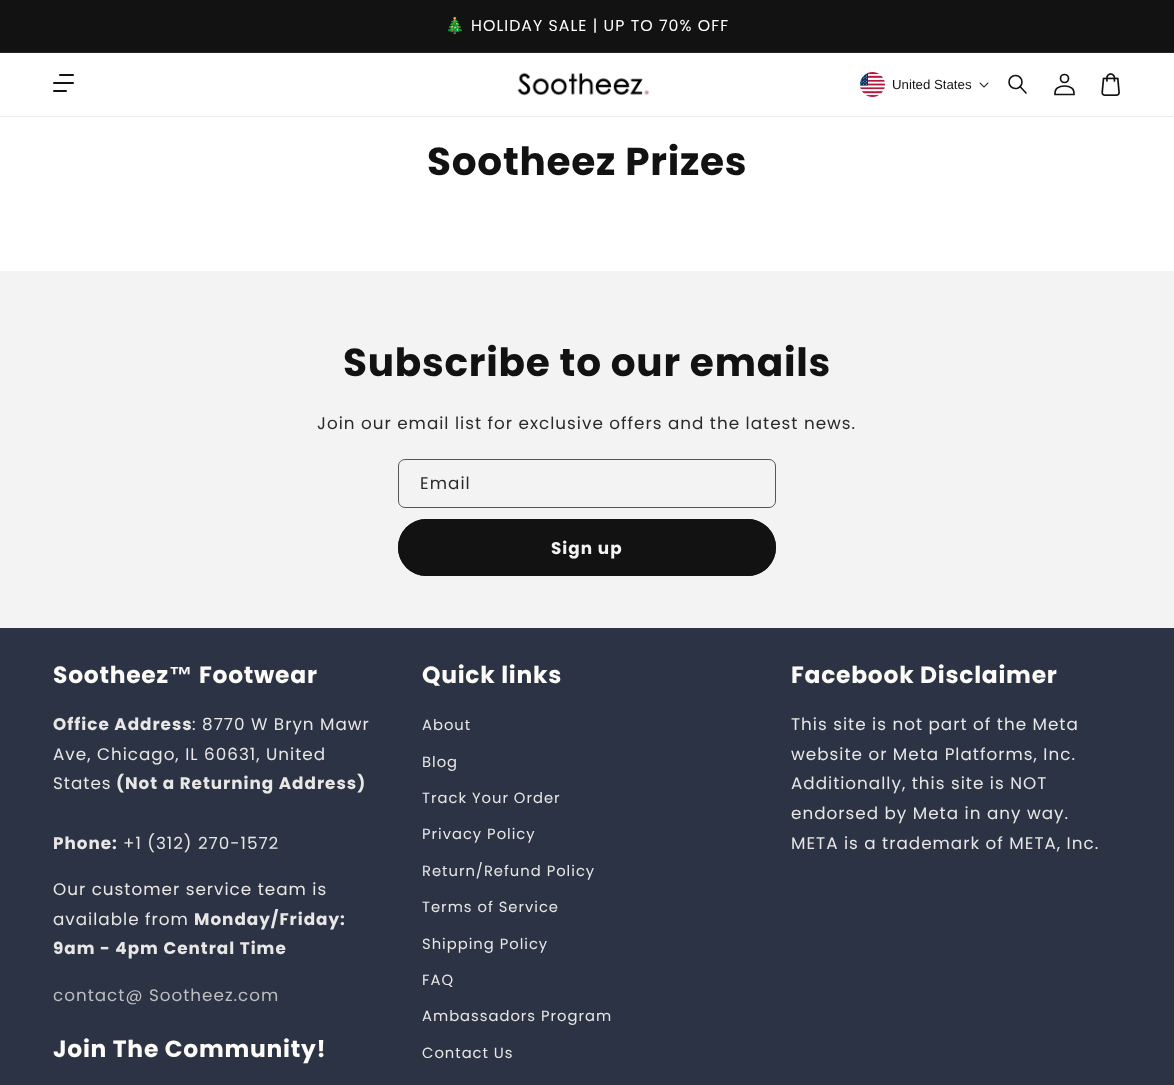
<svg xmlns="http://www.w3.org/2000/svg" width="1174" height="1085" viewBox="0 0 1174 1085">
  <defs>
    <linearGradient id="g1" gradientUnits="userSpaceOnUse" x1="1161" y1="127" x2="13" y2="-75"><stop offset="1" stop-color="rgb(18,18,18)"/><stop offset="1" stop-color="rgb(168,255,251)"/></linearGradient>
  </defs>
  <rect width="100%" height="100%" fill="rgb(255,255,255)"/>
  <rect x="0" y="0" width="1174" height="52" fill="url(#g1)"/>
  <rect x="0" y="52" width="1174" height="1" fill="rgb(37,37,37)"/>
  <text x="445" y="31" font-family="Noto Color Emoji" font-size="15.75" letter-spacing="1.05" fill="rgb(255,255,255)">🎄</text>
  <text x="471" y="31" font-family="Poppins" font-size="15.75" letter-spacing="1.05" fill="rgb(255,255,255)">HOLIDAY SALE | UP TO 70% OFF</text>
  <rect x="0" y="116" width="1174" height="1" fill="rgb(236,236,236)"/>
  <rect x="59" y="74" width="15" height="2" rx="1" fill="rgb(18,18,18)"/>
  <rect x="53" y="82" width="21" height="2" rx="1" fill="rgb(18,18,18)"/>
  <rect x="53" y="90" width="14" height="2" rx="1" fill="rgb(18,18,18)"/>
  <image x="517" y="72" width="133" height="24" href="pic1.png"/>
  <image x="860" y="72" width="25" height="25" href="pic2.png"/>
  <text x="892" y="89" font-family="Liberation Sans" font-size="13.25" fill="rgb(18,18,18)">United States</text>
  <image x="979" y="82" width="10" height="6" href="pic3.png"/>
  <circle cx="1015.5" cy="82" r="6.5" fill="none" stroke="rgb(18,18,18)" stroke-width="1.6"/>
  <path d="M1026 93L1020 86.5" fill="none" stroke="rgb(18,18,18)" stroke-width="1.6" stroke-linecap="round" stroke-linejoin="round"/>
  <circle cx="1064.5" cy="78.5" r="4" fill="none" stroke="rgb(18,18,18)" stroke-width="1.7"/>
  <path d="M1055 94.5H1074C1074.5 88 1070 86 1064.5 86C1059 86 1054.5 88 1055 94.5Z" fill="none" stroke="rgb(18,18,18)" stroke-width="1.7"/>
  <image x="1101" y="73" width="19" height="23" href="pic4.png"/>
  <text x="427" y="175" font-family="Poppins" font-size="39" font-weight="bold" letter-spacing="0.75" fill="rgb(18,18,18)">Sootheez Prizes</text>
  <rect x="0" y="271" width="1174" height="357" fill="rgb(243,243,243)"/>
  <text x="343" y="376" font-family="Poppins" font-size="39" font-weight="bold" letter-spacing="0.75" fill="rgb(18,18,18)">Subscribe to our emails</text>
  <text x="317" y="429" font-family="Poppins" font-size="16.8" letter-spacing="1" fill="rgb(41,41,41)">Join our email list for exclusive offers and the latest news.</text>
  <rect x="398.5" y="459.5" width="377" height="48" rx="6.5" fill="none" stroke="rgb(86,86,86)"/>
  <text x="420" y="489" font-family="Poppins" font-size="16.8" letter-spacing="1.05" fill="rgb(41,41,41)">Email</text>
  <rect x="400.5" y="521.5" width="373" height="52" rx="26" fill="none" stroke="rgb(18,18,18)" stroke-width="5"/>
  <rect x="398" y="519" width="378" height="57" rx="28.5" fill="rgb(18,18,18)"/>
  <text x="551" y="554" font-family="Poppins" font-size="16.8" font-weight="bold" letter-spacing="1.05" fill="rgb(243,243,243)">Sign up</text>
  <rect x="0" y="628" width="1174" height="457" fill="rgb(43,51,68)"/>
  <text x="53" y="683" font-family="Poppins" font-size="23.4" font-weight="bold" letter-spacing="0.75" fill="rgb(253,251,247)">Sootheez</text>
  <text x="169" y="683" font-family="Liberation Sans" font-size="23.4" font-weight="bold" letter-spacing="0.75" fill="rgb(253,251,247)">™</text>
  <text x="199" y="683" font-family="Poppins" font-size="23.4" font-weight="bold" letter-spacing="0.75" fill="rgb(253,251,247)">Footwear</text>
  <text x="53" y="730" font-family="Poppins" font-size="16.8" font-weight="bold" letter-spacing="1" fill="rgb(232,231,229)">Office Address</text>
  <g font-family="Poppins" font-size="16.8" letter-spacing="1" fill="rgb(232,231,229)">
    <text x="192" y="730">: 8770 W Bryn Mawr</text>
    <text>
      <tspan x="53" y="760">Ave, Chicago, IL 60631, United</tspan>
      <tspan x="53" y="789">States</tspan>
    </text>
  </g>
  <g font-family="Poppins" font-size="16.8" font-weight="bold" letter-spacing="1" fill="rgb(232,231,229)">
    <text x="116" y="789">(Not a Returning Address)</text>
    <text x="53" y="849">Phone:</text>
  </g>
  <g font-family="Poppins" font-size="16.8" letter-spacing="1" fill="rgb(232,231,229)">
    <text x="123" y="849">+1 (312) 270-1572</text>
    <text>
      <tspan x="53" y="895">Our customer service team is</tspan>
      <tspan x="53" y="925">available from</tspan>
    </text>
  </g>
  <g font-family="Poppins" font-size="16.8" font-weight="bold" letter-spacing="1" fill="rgb(232,231,229)">
    <text x="194" y="925">Monday/Friday:</text>
    <text x="53" y="954">9am - 4pm Central Time</text>
  </g>
  <text x="53" y="1001" font-family="Poppins" font-size="16.8" letter-spacing="1" fill="rgb(190,191,193)">contact@ Sootheez.com</text>
  <g font-family="Poppins" font-size="23.4" font-weight="bold" letter-spacing="0.75" fill="rgb(253,251,247)">
    <text x="53" y="1057">Join The Community!</text>
    <text x="422" y="683">Quick links</text>
  </g>
  <g font-family="Poppins" font-size="14.75" letter-spacing="1" fill="rgb(232,231,229)">
    <text x="422" y="730">About</text>
    <text x="422" y="767">Blog</text>
    <text x="422" y="803">Track Your Order</text>
    <text x="422" y="839">Privacy Policy</text>
    <text x="422" y="876">Return/Refund Policy</text>
    <text x="422" y="912">Terms of Service</text>
    <text x="422" y="949">Shipping Policy</text>
    <text x="422" y="985">FAQ</text>
    <text x="422" y="1021">Ambassadors Program</text>
    <text x="422" y="1058">Contact Us</text>
  </g>
  <text x="791" y="683" font-family="Poppins" font-size="23.4" font-weight="bold" letter-spacing="0.75" fill="rgb(253,251,247)">Facebook Disclaimer</text>
  <g font-family="Poppins" font-size="16.8" letter-spacing="1" fill="rgb(232,231,229)">
    <text>
      <tspan x="791" y="730">This site is not part of the Meta</tspan>
      <tspan x="791" y="760">website or Meta Platforms, Inc.</tspan>
      <tspan x="791" y="789">Additionally, this site is NOT</tspan>
      <tspan x="791" y="819">endorsed by Meta in any way.</tspan>
      <tspan x="791" y="849">META is a trademark of META, Inc.</tspan>
    </text>
  </g>
</svg>
